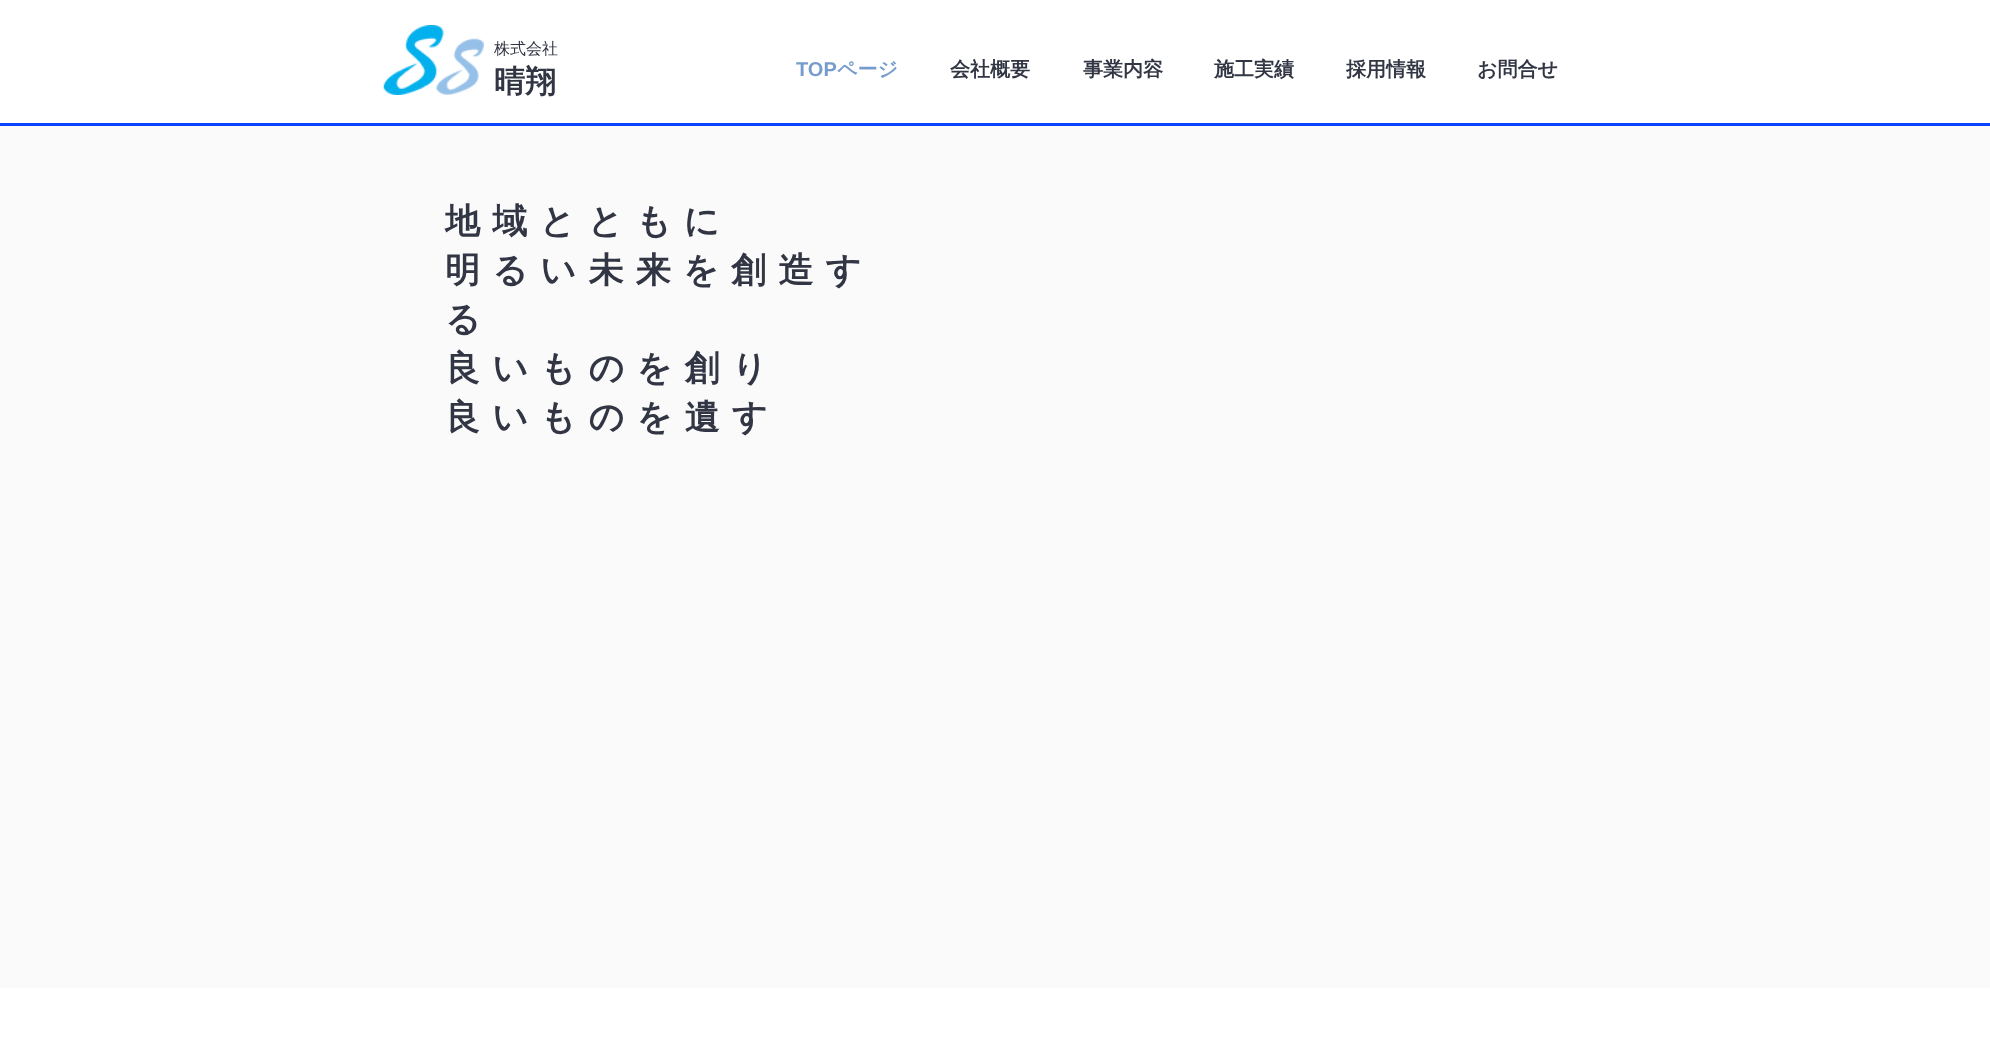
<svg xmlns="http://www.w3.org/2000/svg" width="1990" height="1050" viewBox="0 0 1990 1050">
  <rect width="100%" height="100%" fill="rgb(255,255,255)"/>
  <image x="383" y="25" width="101" height="70" href="pic1.png"/>
  <text x="494" y="54" font-family="WenQuanYi Zen Hei" font-size="16" font-weight="500" fill="rgb(50,54,68)">株式会社</text>
  <text x="494" y="92" font-family="WenQuanYi Zen Hei" font-size="31" font-weight="bold" fill="rgb(50,54,68)">晴翔</text>
  <text x="796" y="76" font-family="Liberation Sans" font-size="20" font-weight="bold" fill="rgb(118,156,205)">TOP</text>
  <text x="837" y="76" font-family="WenQuanYi Zen Hei" font-size="20" font-weight="bold" fill="rgb(118,156,205)">ページ</text>
  <g font-family="WenQuanYi Zen Hei" font-size="20" font-weight="bold" fill="rgb(50,54,68)">
    <text x="950" y="76">会社概要</text>
    <text x="1083" y="76">事業内容</text>
    <text x="1214" y="76">施工実績</text>
    <text x="1346" y="76">採用情報</text>
    <text x="1477" y="76">お問合せ</text>
  </g>
  <rect x="0" y="123" width="1990" height="3" fill="rgb(10,67,255)"/>
  <rect x="0" y="126" width="1990" height="862" fill="rgb(250,250,250)"/>
  <g font-family="WenQuanYi Zen Hei" font-size="35" font-weight="bold" letter-spacing="12.25" fill="rgb(50,54,68)">
    <text>
      <tspan x="445" y="233">地域とともに</tspan>
      <tspan x="445" y="282">明るい未来を創造す</tspan>
      <tspan x="445" y="331">る</tspan>
      <tspan x="445" y="380">良いものを創り</tspan>
      <tspan x="445" y="429">良いものを遺す</tspan>
    </text>
  </g>
</svg>
